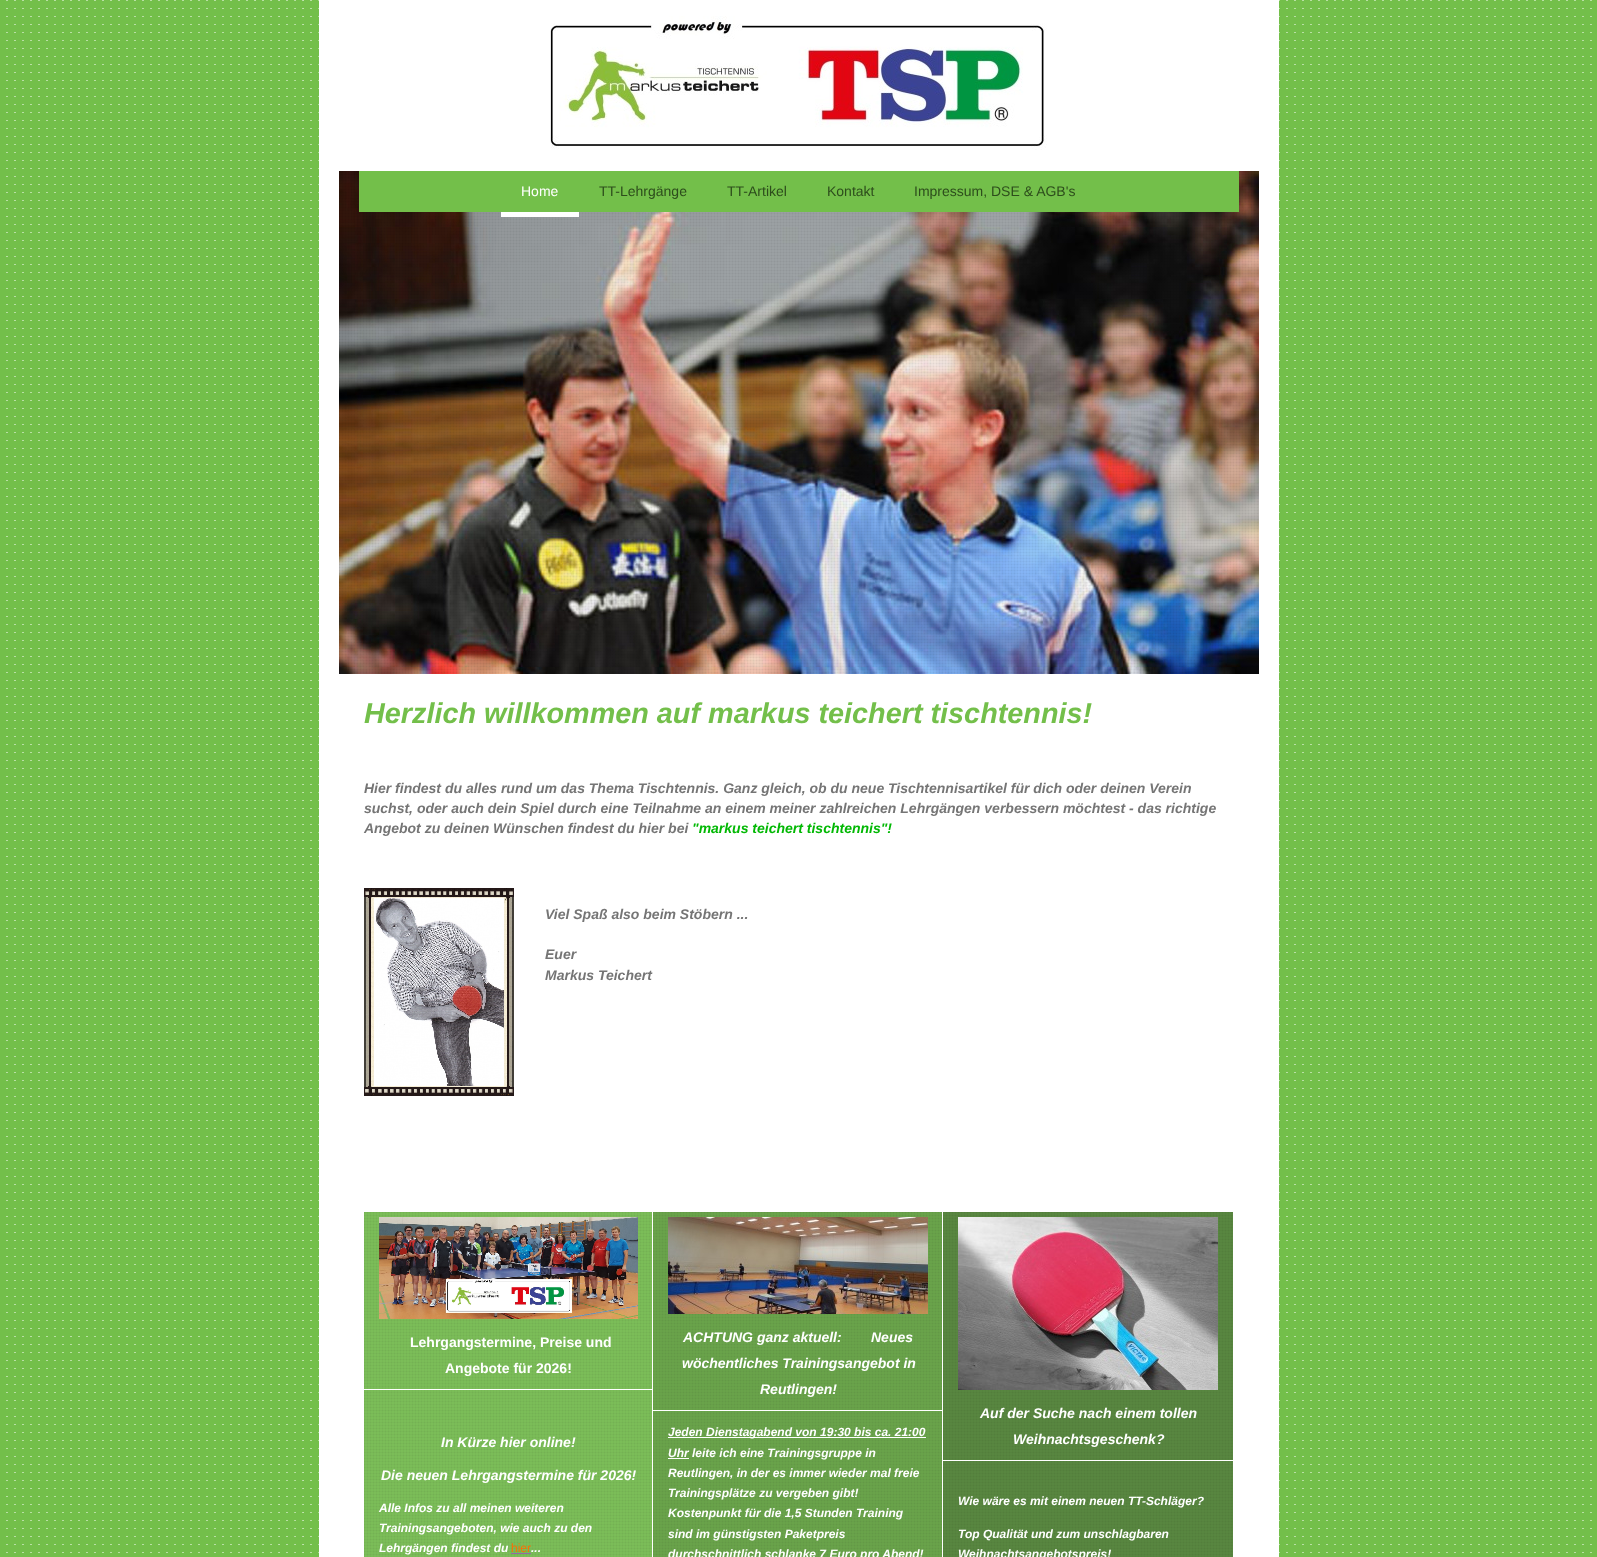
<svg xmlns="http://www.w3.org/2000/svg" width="1597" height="1557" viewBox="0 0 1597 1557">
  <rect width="100%" height="100%" fill="rgb(115,191,74)"/>
  <image x="6" y="0" width="1586" height="1553" href="pic1.png"/>
  <rect x="319" y="0" width="960" height="1557" fill="rgb(255,255,255)"/>
  <image x="550" y="16" width="497" height="134" href="pic2.png"/>
  <image x="339" y="171" width="920" height="503" href="pic3.png"/>
  <image x="339" y="171" width="920" height="503" href="pic4.png"/>
  <rect x="359" y="171" width="880" height="41" fill="rgb(115,191,74)"/>
  <rect x="501" y="212" width="78" height="5" fill="rgb(255,255,255)"/>
  <text x="521" y="196" font-family="Liberation Sans" font-size="14" fill="rgb(255,255,255)">Home</text>
  <g font-family="Liberation Sans" font-size="14" fill="rgb(45,77,28)">
    <text x="599" y="196">TT-Lehrgänge</text>
    <text x="727" y="196">TT-Artikel</text>
    <text x="827" y="196">Kontakt</text>
    <text x="914" y="196">Impressum, DSE &amp; AGB's</text>
  </g>
  <text x="364" y="723" font-family="Liberation Sans" font-size="28.8" font-weight="bold" font-style="italic" fill="rgb(115,191,74)">Herzlich willkommen auf markus teichert tischtennis!</text>
  <g font-family="Liberation Sans" font-size="14" font-weight="bold" font-style="italic" fill="rgb(117,117,117)">
    <text>
      <tspan x="364" y="793">Hier findest du alles rund um das Thema Tischtennis. Ganz gleich, ob du neue Tischtennisartikel für dich oder deinen Verein</tspan>
      <tspan x="364" y="813">suchst, oder auch dein Spiel durch eine Teilnahme an einem meiner zahlreichen Lehrgängen verbessern möchtest - das richtige</tspan>
      <tspan x="364" y="833">Angebot zu deinen Wünschen findest du hier bei</tspan>
    </text>
  </g>
  <text x="692" y="833" font-family="Liberation Sans" font-size="14" font-weight="bold" font-style="italic" fill="rgb(2,184,4)">"markus teichert tischtennis"!</text>
  <image x="364" y="888" width="150" height="208" href="pic5.png"/>
  <g font-family="Liberation Sans" font-size="14" font-weight="bold" font-style="italic" fill="rgb(117,117,117)">
    <text x="545" y="919">Viel Spaß also beim Stöbern ...</text>
    <text>
      <tspan x="545" y="959">Euer</tspan>
      <tspan x="545" y="980">Markus Teichert</tspan>
    </text>
  </g>
  <rect x="364" y="1212" width="288" height="345" fill="rgb(129,197,92)"/>
  <image x="364" y="1212" width="288" height="345" href="pic6.png"/>
  <image x="379" y="1217" width="259" height="102" href="pic7.png"/>
  <rect x="364" y="1389" width="289" height="1" fill="rgb(255,255,255)"/>
  <g font-family="Liberation Sans" font-size="14" font-weight="bold" fill="rgb(255,255,255)">
    <text x="410" y="1347">Lehrgangstermine, Preise und</text>
    <text x="445" y="1373">Angebote für 2026!</text>
  </g>
  <g font-family="Liberation Sans" font-size="14" font-weight="bold" font-style="italic" fill="rgb(255,255,255)">
    <text x="441" y="1447">In Kürze hier online!</text>
    <text x="381" y="1480">Die neuen Lehrgangstermine für 2026!</text>
  </g>
  <g font-family="Liberation Sans" font-size="12" font-weight="bold" font-style="italic" fill="rgb(255,255,255)">
    <text>
      <tspan x="379" y="1512">Alle Infos zu all meinen weiteren</tspan>
      <tspan x="379" y="1532">Trainingsangeboten, wie auch zu den</tspan>
      <tspan x="379" y="1552">Lehrgängen findest du</tspan>
    </text>
  </g>
  <text x="511" y="1552" font-family="Liberation Sans" font-size="12" fill="rgb(251,110,5)">hier</text>
  <text x="531" y="1552" font-family="Liberation Sans" font-size="12" font-weight="bold" font-style="italic" fill="rgb(255,255,255)">...</text>
  <rect x="511" y="1553" width="20" height="1" fill="rgb(149,104,167)"/>
  <rect x="653" y="1212" width="289" height="345" fill="rgb(110,170,78)"/>
  <image x="653" y="1212" width="289" height="345" href="pic8.png"/>
  <image x="668" y="1217" width="260" height="97" href="pic9.png"/>
  <rect x="653" y="1410" width="290" height="1" fill="rgb(255,255,255)"/>
  <g font-family="Liberation Sans" font-size="14" font-weight="bold" font-style="italic" fill="rgb(255,255,255)">
    <text x="683" y="1342">ACHTUNG ganz aktuell:</text>
    <text x="871" y="1342">Neues</text>
    <text x="682" y="1368">wöchentliches Trainingsangebot in</text>
    <text x="760" y="1394">Reutlingen!</text>
  </g>
  <rect x="668" y="1437" width="258" height="1" fill="rgb(255,255,255)"/>
  <text x="668" y="1436" font-family="Liberation Sans" font-size="12" font-weight="bold" font-style="italic" fill="rgb(255,255,255)">Jeden Dienstagabend von 19:30 bis ca. 21:00</text>
  <rect x="668" y="1458" width="21" height="1" fill="rgb(255,255,255)"/>
  <g font-family="Liberation Sans" font-size="12" font-weight="bold" font-style="italic" fill="rgb(255,255,255)">
    <text>
      <tspan x="668" y="1457">Uhr leite ich eine Trainingsgruppe in</tspan>
      <tspan x="668" y="1477">Reutlingen, in der es immer wieder mal freie</tspan>
      <tspan x="668" y="1497">Trainingsplätze zu vergeben gibt!</tspan>
      <tspan x="668" y="1517">Kostenpunkt für die 1,5 Stunden Training</tspan>
      <tspan x="668" y="1538">sind im günstigsten Paketpreis</tspan>
      <tspan x="668" y="1558">durchschnittlich schlanke 7 Euro pro Abend!</tspan>
    </text>
  </g>
  <rect x="943" y="1212" width="290" height="345" fill="rgb(92,140,67)"/>
  <image x="943" y="1212" width="290" height="345" href="pic10.png"/>
  <image x="958" y="1217" width="260" height="173" href="pic11.png"/>
  <rect x="943" y="1460" width="290" height="1" fill="rgb(255,255,255)"/>
  <g font-family="Liberation Sans" font-size="14" font-weight="bold" font-style="italic" fill="rgb(255,255,255)">
    <text x="980" y="1418">Auf der Suche nach einem tollen</text>
    <text x="1013" y="1444">Weihnachtsgeschenk?</text>
  </g>
  <g font-family="Liberation Sans" font-size="12" font-weight="bold" font-style="italic" fill="rgb(255,255,255)">
    <text x="958" y="1505">Wie wäre es mit einem neuen TT-Schläger?</text>
    <text>
      <tspan x="958" y="1538">Top Qualität und zum unschlagbaren</tspan>
      <tspan x="958" y="1558">Weihnachtsangebotspreis!</tspan>
    </text>
  </g>
</svg>
